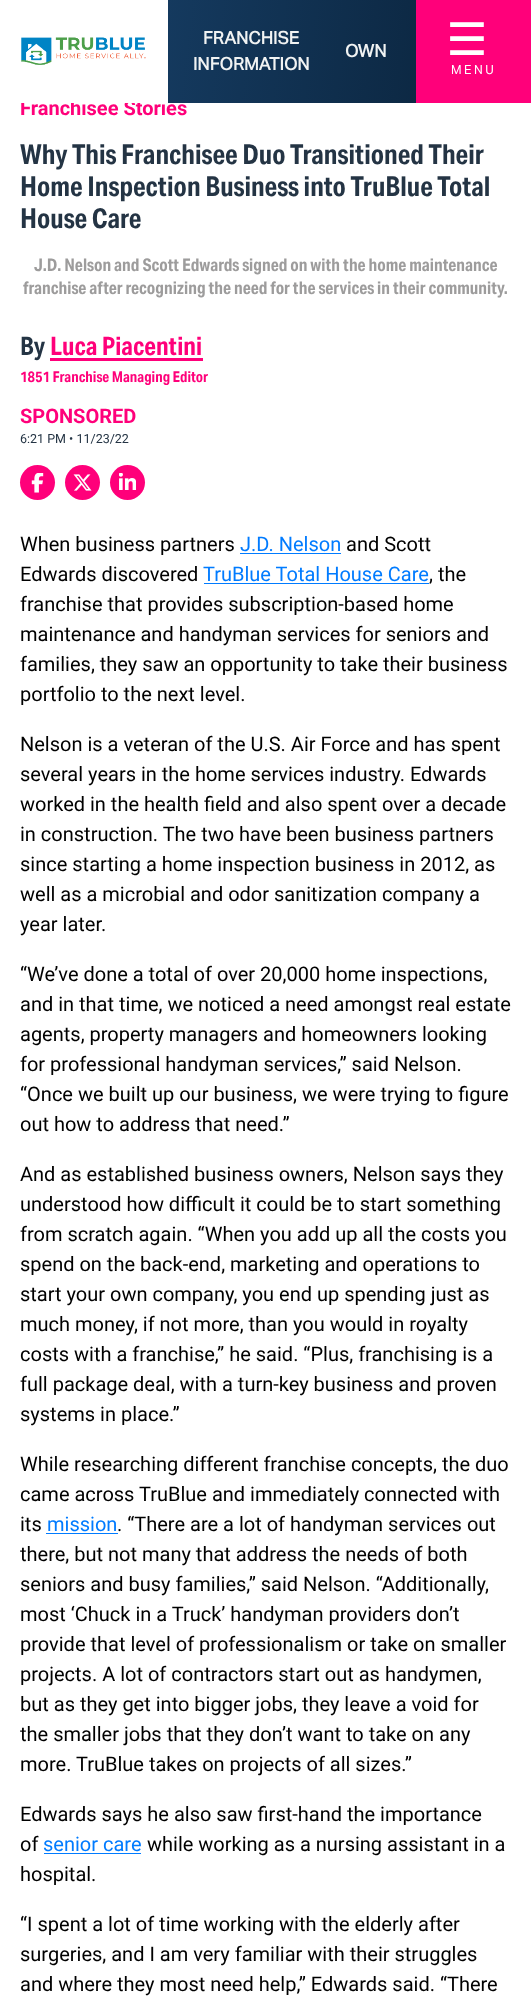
<svg xmlns="http://www.w3.org/2000/svg" width="531" height="1999" viewBox="0 0 531 1999">
  <defs>
    <linearGradient id="g1" gradientUnits="userSpaceOnUse" x1="-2.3" y1="18" x2="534" y2="84"><stop offset="0.1" stop-color="rgb(24,65,106)"/><stop offset="1" stop-color="rgb(9,33,56)"/></linearGradient>
  </defs>
  <rect width="100%" height="100%" fill="rgb(255,255,255)"/>
  <text x="20" y="115" font-family="Roboto" font-size="20" font-weight="bold" fill="rgb(255,0,122)">Franchisee Stories</text>
  <rect x="168" y="0" width="248" height="103" fill="url(#g1)"/>
  <rect x="21" y="100" width="145" height="3" fill="rgb(255,255,255)"/>
  <image x="21" y="37" width="125" height="28" href="pic1.png"/>
  <g font-family="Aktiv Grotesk" font-size="17.5" font-weight="bold" fill="rgb(241,243,243)">
    <text x="203" y="44">FRANCHISE</text>
    <text x="193" y="70">INFORMATION</text>
    <text x="345" y="57">OWN</text>
  </g>
  <rect x="416" y="0" width="115" height="103" fill="rgb(255,0,122)"/>
  <text x="448" y="55" font-family="Aktiv Grotesk" font-size="44" font-weight="bold" letter-spacing="15" fill="rgb(255,255,255)">☰</text>
  <text x="451" y="74" font-family="Aktiv Grotesk" font-size="12.5" letter-spacing="2.5" fill="rgb(255,255,255)">MENU</text>
  <g font-family="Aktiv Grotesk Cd" font-size="27.5" font-weight="bold" fill="rgb(36,52,68)">
    <text>
      <tspan x="20" y="164">Why This Franchisee Duo Transitioned Their</tspan>
      <tspan x="20" y="196">Home Inspection Business into TruBlue Total</tspan>
      <tspan x="20" y="228">House Care</tspan>
    </text>
  </g>
  <g font-family="Aktiv Grotesk Cd" font-size="17.5" font-weight="bold" fill="rgb(157,156,156)">
    <text x="34" y="271">J.D. Nelson and Scott Edwards signed on with the home maintenance</text>
    <text x="23" y="294">franchise after recognizing the need for the services in their community.</text>
  </g>
  <text x="20" y="355" font-family="Aktiv Grotesk Cd" font-size="25.5" font-weight="bold" fill="rgb(36,52,68)">By</text>
  <text x="50" y="355" font-family="Aktiv Grotesk Cd" font-size="25.5" font-weight="bold" fill="rgb(255,0,122)">Luca Piacentini</text>
  <rect x="50" y="358" width="153" height="3" fill="rgb(255,0,122)"/>
  <text x="20" y="382" font-family="Aktiv Grotesk Cd" font-size="15" font-weight="bold" fill="rgb(255,0,122)">1851 Franchise Managing Editor</text>
  <text x="20" y="423" font-family="Roboto" font-size="20" font-weight="bold" fill="rgb(255,0,122)">SPONSORED</text>
  <text x="20" y="443" font-family="Roboto" font-size="12.5" fill="rgb(36,52,68)">6:21 PM • 11/23/22</text>
  <circle cx="37.5" cy="482.5" r="17.5" fill="rgb(255,0,122)"/>
  <image x="31" y="473" width="13" height="20" href="pic2.png"/>
  <circle cx="82.5" cy="482.5" r="17.5" fill="rgb(255,0,122)"/>
  <image x="73" y="474" width="19" height="17" href="pic3.png"/>
  <circle cx="127.5" cy="482.5" r="17.5" fill="rgb(255,0,122)"/>
  <image x="119" y="473" width="17" height="17" href="pic4.png"/>
  <text x="20" y="551" font-family="Roboto" font-size="20" fill="rgb(0,0,0)">When business partners</text>
  <text x="240" y="551" font-family="Roboto" font-size="20" fill="rgb(0,123,255)">J.D. Nelson</text>
  <rect x="240" y="553" width="101" height="1" fill="rgb(0,123,255)"/>
  <g font-family="Roboto" font-size="20" fill="rgb(0,0,0)">
    <text x="346" y="551">and Scott</text>
    <text x="20" y="581">Edwards discovered</text>
  </g>
  <text x="203" y="581" font-family="Roboto" font-size="20" fill="rgb(0,123,255)">TruBlue Total House Care</text>
  <rect x="204" y="583" width="225" height="1" fill="rgb(0,123,255)"/>
  <g font-family="Roboto" font-size="20" fill="rgb(0,0,0)">
    <text x="429" y="581">, the</text>
    <text>
      <tspan x="20" y="611">franchise that provides subscription-based home</tspan>
      <tspan x="20" y="641">maintenance and handyman services for seniors and</tspan>
      <tspan x="20" y="671">families, they saw an opportunity to take their business</tspan>
      <tspan x="20" y="701">portfolio to the next level.</tspan>
    </text>
    <text>
      <tspan x="20" y="751">Nelson is a veteran of the U.S. Air Force and has spent</tspan>
      <tspan x="20" y="781">several years in the home services industry. Edwards</tspan>
      <tspan x="20" y="811">worked in the health field and also spent over a decade</tspan>
      <tspan x="20" y="841">in construction. The two have been business partners</tspan>
      <tspan x="20" y="871">since starting a home inspection business in 2012, as</tspan>
      <tspan x="20" y="901">well as a microbial and odor sanitization company a</tspan>
      <tspan x="20" y="931">year later.</tspan>
    </text>
    <text>
      <tspan x="20" y="981">“We’ve done a total of over 20,000 home inspections,</tspan>
      <tspan x="20" y="1011">and in that time, we noticed a need amongst real estate</tspan>
      <tspan x="20" y="1041">agents, property managers and homeowners looking</tspan>
      <tspan x="20" y="1071">for professional handyman services,” said Nelson.</tspan>
      <tspan x="20" y="1101">“Once we built up our business, we were trying to figure</tspan>
      <tspan x="20" y="1131">out how to address that need.”</tspan>
    </text>
    <text>
      <tspan x="20" y="1181">And as established business owners, Nelson says they</tspan>
      <tspan x="20" y="1211">understood how difficult it could be to start something</tspan>
      <tspan x="20" y="1241">from scratch again. “When you add up all the costs you</tspan>
      <tspan x="20" y="1271">spend on the back-end, marketing and operations to</tspan>
      <tspan x="20" y="1301">start your own company, you end up spending just as</tspan>
      <tspan x="20" y="1331">much money, if not more, than you would in royalty</tspan>
      <tspan x="20" y="1361">costs with a franchise,” he said. “Plus, franchising is a</tspan>
      <tspan x="20" y="1391">full package deal, with a turn-key business and proven</tspan>
      <tspan x="20" y="1421">systems in place.”</tspan>
    </text>
    <text>
      <tspan x="20" y="1471">While researching different franchise concepts, the duo</tspan>
      <tspan x="20" y="1501">came across TruBlue and immediately connected with</tspan>
      <tspan x="20" y="1531">its</tspan>
    </text>
  </g>
  <text x="47" y="1531" font-family="Roboto" font-size="20" fill="rgb(0,123,255)">mission</text>
  <rect x="46" y="1533" width="72" height="1" fill="rgb(0,123,255)"/>
  <g font-family="Roboto" font-size="20" fill="rgb(0,0,0)">
    <text x="117" y="1531">. “There are a lot of handyman services out</text>
    <text>
      <tspan x="20" y="1561">there, but not many that address the needs of both</tspan>
      <tspan x="20" y="1591">seniors and busy families,” said Nelson. “Additionally,</tspan>
      <tspan x="20" y="1621">most ‘Chuck in a Truck’ handyman providers don’t</tspan>
      <tspan x="20" y="1651">provide that level of professionalism or take on smaller</tspan>
      <tspan x="20" y="1681">projects. A lot of contractors start out as handymen,</tspan>
      <tspan x="20" y="1711">but as they get into bigger jobs, they leave a void for</tspan>
      <tspan x="20" y="1741">the smaller jobs that they don’t want to take on any</tspan>
      <tspan x="20" y="1771">more. TruBlue takes on projects of all sizes.”</tspan>
    </text>
    <text>
      <tspan x="20" y="1821">Edwards says he also saw first-hand the importance</tspan>
      <tspan x="20" y="1851">of</tspan>
    </text>
  </g>
  <text x="43" y="1851" font-family="Roboto" font-size="20" fill="rgb(0,123,255)">senior care</text>
  <rect x="44" y="1853" width="97" height="1" fill="rgb(0,123,255)"/>
  <g font-family="Roboto" font-size="20" fill="rgb(0,0,0)">
    <text x="147" y="1851">while working as a nursing assistant in a</text>
    <text x="20" y="1881">hospital.</text>
    <text>
      <tspan x="20" y="1931">“I spent a lot of time working with the elderly after</tspan>
      <tspan x="20" y="1961">surgeries, and I am very familiar with their struggles</tspan>
      <tspan x="20" y="1991">and where they most need help,” Edwards said. “There</tspan>
    </text>
  </g>
</svg>
